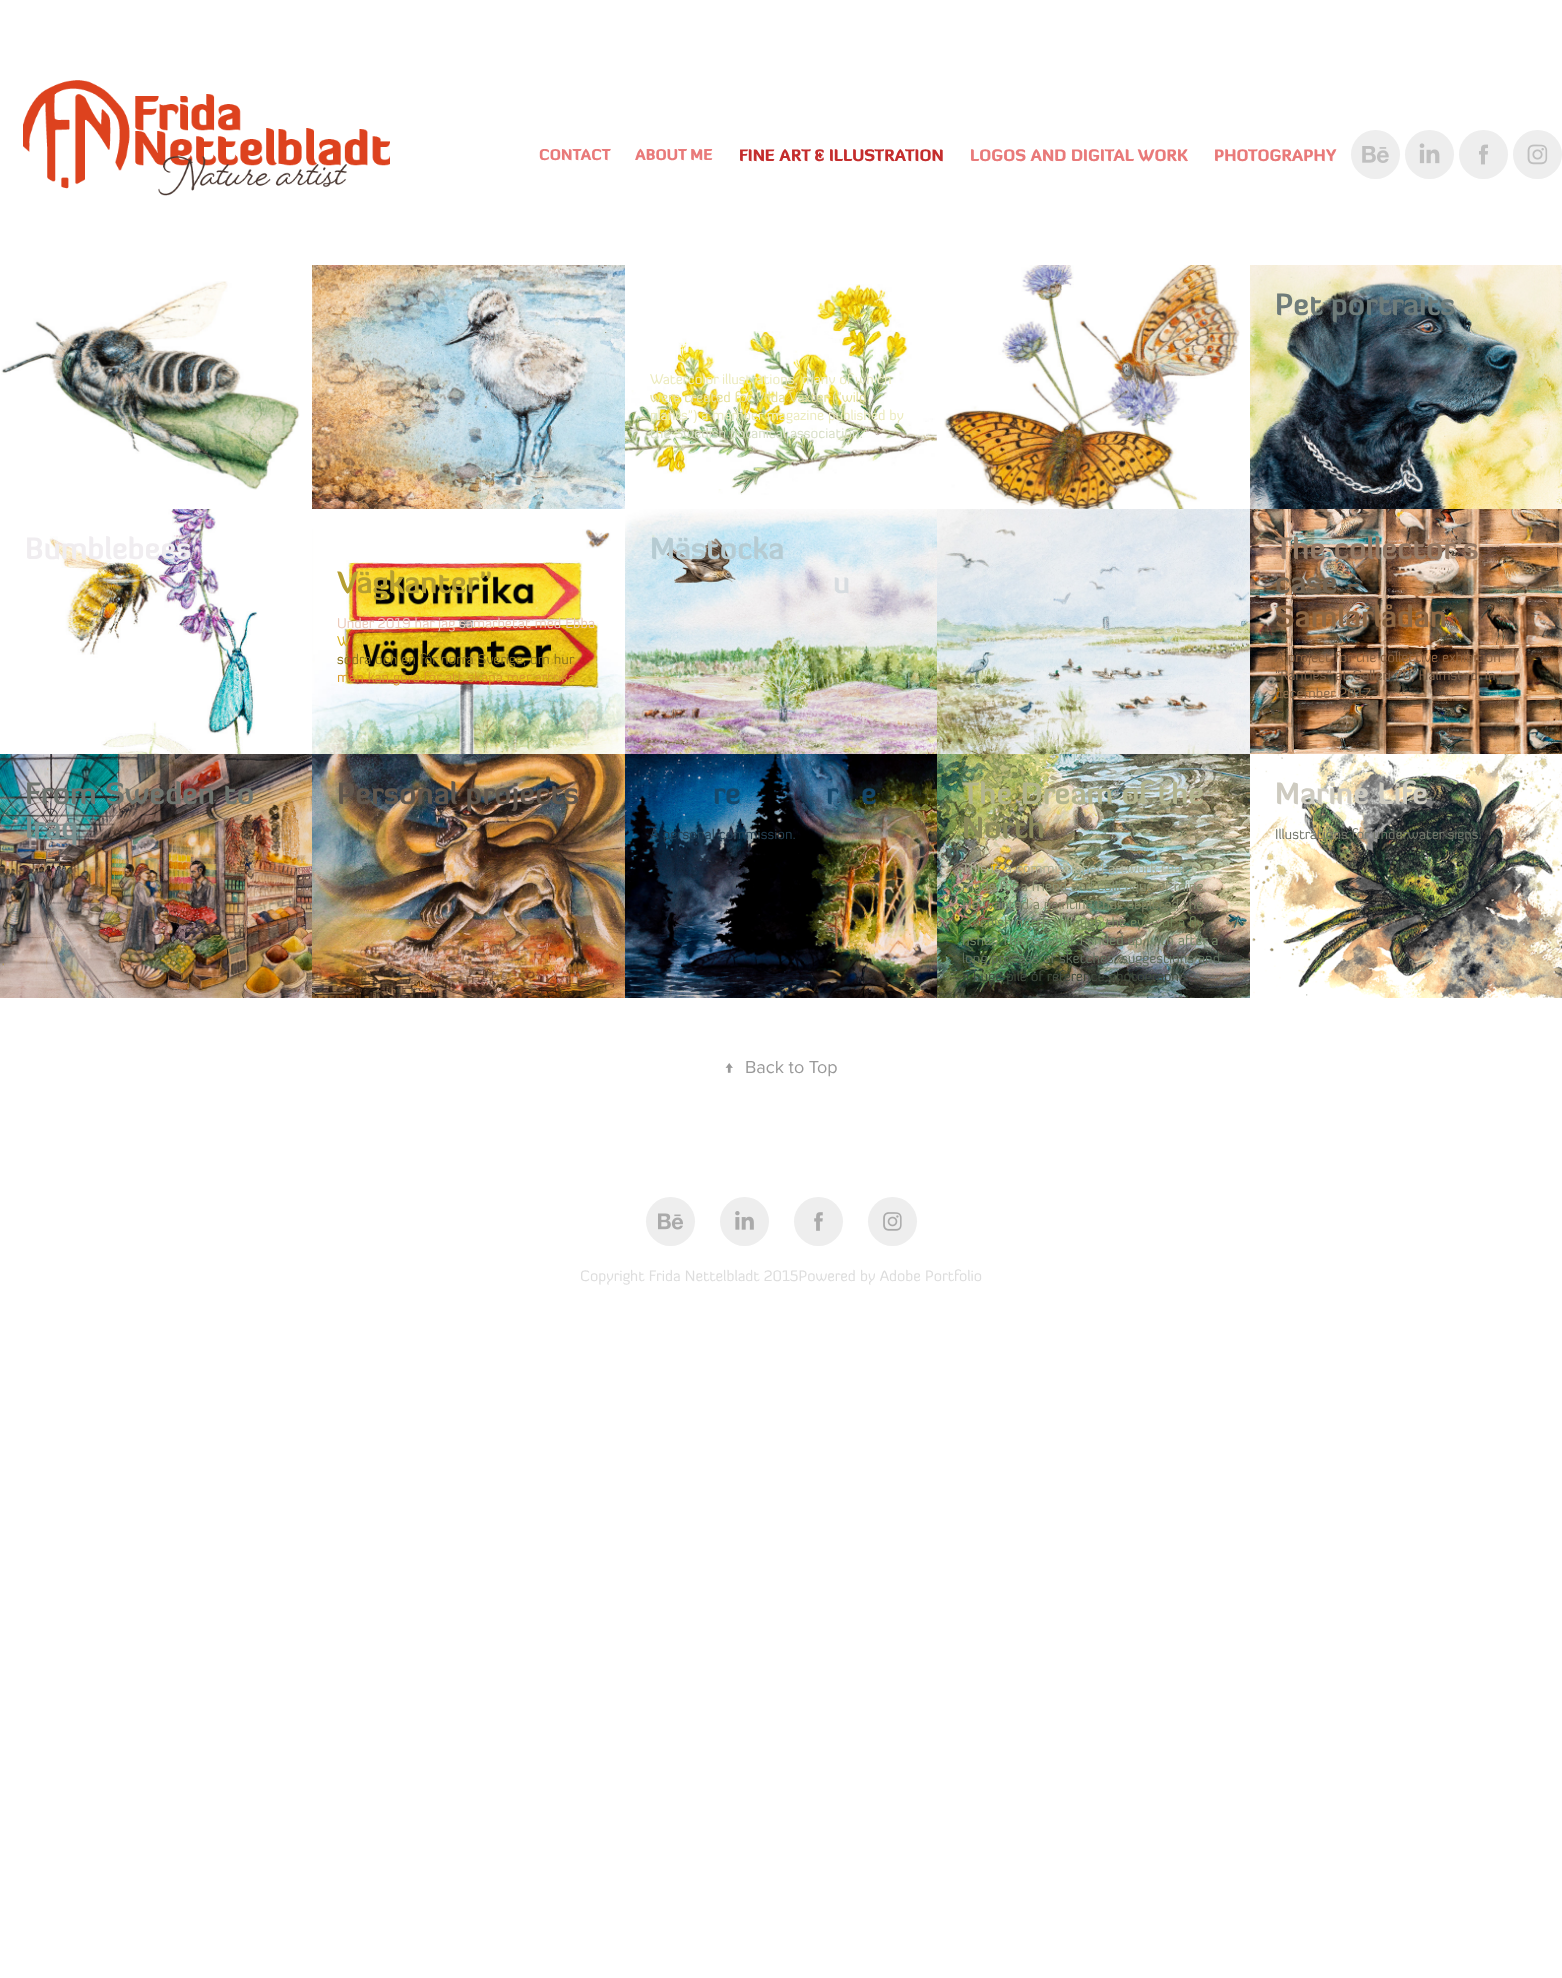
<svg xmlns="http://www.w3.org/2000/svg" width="1562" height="1978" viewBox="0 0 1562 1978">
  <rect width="100%" height="100%" fill="rgb(255,255,255)"/>
  <image x="23" y="80" width="367" height="116" href="pic1.png"/>
  <g font-family="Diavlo" font-size="15" font-weight="900" fill="rgb(233,122,122)">
    <text x="539" y="160">CONTACT</text>
    <text x="635" y="160">ABOUT ME</text>
  </g>
  <text x="739" y="161" font-family="Diavlo" font-size="16" font-weight="900" fill="rgb(196,45,45)">FINE ART &amp; ILLUSTRATION</text>
  <g font-family="Diavlo" font-size="16" font-weight="900" fill="rgb(233,122,122)">
    <text x="970" y="161">LOGOS AND DIGITAL WORK</text>
    <text x="1214" y="161">PHOTOGRAPHY</text>
  </g>
  <circle cx="1375.5" cy="154.5" r="24.5" fill="rgb(238,238,238)"/>
  <image x="1362" y="146" width="27" height="17" href="pic2.png"/>
  <circle cx="1429.5" cy="154.5" r="24.5" fill="rgb(238,238,238)"/>
  <image x="1419" y="143" width="21" height="21" href="pic3.png"/>
  <circle cx="1483.5" cy="154.5" r="24.5" fill="rgb(238,238,238)"/>
  <image x="1479" y="144" width="9" height="21" href="pic4.png"/>
  <circle cx="1537.5" cy="154.5" r="24.5" fill="rgb(238,238,238)"/>
  <image x="1527" y="144" width="21" height="21" href="pic5.png"/>
  <image x="1" y="281" width="299" height="209" href="pic6.png"/>
  <image x="312" y="265" width="313" height="244" href="pic7.png"/>
  <image x="944" y="265" width="296" height="244" href="pic8.png"/>
  <image x="1250" y="265" width="312" height="244" href="pic9.png"/>
  <text x="1275" y="315" font-family="Diavlo" font-size="30" font-weight="bold" fill="rgb(111,124,122)">Pet portraits</text>
  <image x="625" y="284" width="312" height="211" href="pic10.png"/>
  <text x="650" y="384" font-family="Diavlo" font-size="14" fill="rgb(236,235,190)">Watercolor illustrations, many of which</text>
  <text x="650" y="402" font-family="Diavlo" font-size="14" fill="rgb(230,225,155)">were created for Vilda Växter ("wild</text>
  <text x="650" y="420" font-family="Diavlo" font-size="14" fill="rgb(236,235,190)">plants") a member magazine published by</text>
  <text x="650" y="438" font-family="Diavlo" font-size="14" fill="rgb(216,223,199)">the Swedish botanical association.</text>
  <image x="49" y="509" width="209" height="245" href="pic11.png"/>
  <text x="25" y="559" font-family="Diavlo" font-size="30" font-weight="bold" fill="rgb(240,237,240)">Bumblebees</text>
  <image x="312" y="529" width="313" height="225" href="pic12.png"/>
  <text x="337" y="593" font-family="Diavlo" font-size="30" font-weight="bold" fill="rgb(182,159,50)">Vägkanter"</text>
  <text x="337" y="628" font-family="Diavlo" font-size="14" fill="rgb(235,202,186)">Under 2019 har jag samarbetat med Ebba</text>
  <text x="337" y="646" font-family="Diavlo" font-size="14" fill="rgb(216,179,34)">W</text>
  <text x="337" y="664" font-family="Diavlo" font-size="14" fill="rgb(140,118,30)">södra och en för norra Sverige, om hur</text>
  <text x="337" y="682" font-family="Diavlo" font-size="14" fill="rgb(217,155,42)">man kan göra för att skapa mer artrika</text>
  <image x="625" y="509" width="312" height="245" href="pic13.png"/>
  <text x="650" y="559" font-family="Diavlo" font-size="30" font-weight="bold" fill="rgb(182,203,210)">Mästocka</text>
  <text x="833" y="593" font-family="Diavlo" font-size="30" font-weight="bold" fill="rgb(215,220,224)">u</text>
  <image x="937" y="509" width="313" height="245" href="pic14.png"/>
  <image x="1250" y="509" width="312" height="245" href="pic15.png"/>
  <text x="1275" y="559" font-family="Diavlo" font-size="30" font-weight="bold" fill="rgb(149,123,103)">The collector's</text>
  <text x="1275" y="593" font-family="Diavlo" font-size="30" font-weight="bold" fill="rgb(117,101,83)">case -</text>
  <text x="1275" y="627" font-family="Diavlo" font-size="30" font-weight="bold" fill="rgb(141,104,69)">Samlarlådan</text>
  <text x="1275" y="662" font-family="Diavlo" font-size="14" fill="rgb(139,97,63)">A project for the collective exhibition</text>
  <text x="1275" y="680" font-family="Diavlo" font-size="14" fill="rgb(123,96,74)">"Rarities" at Galleri 70, Halmstad, in</text>
  <text x="1275" y="698" font-family="Diavlo" font-size="14" fill="rgb(139,107,75)">december 2017.</text>
  <image x="0" y="754" width="312" height="244" href="pic16.png"/>
  <text x="25" y="804" font-family="Diavlo" font-size="30" font-weight="bold" fill="rgb(110,117,111)">From Sweden to</text>
  <text x="25" y="838" font-family="Diavlo" font-size="30" font-weight="bold" fill="rgb(122,144,143)">Iraq</text>
  <image x="312" y="754" width="313" height="244" href="pic17.png"/>
  <text x="337" y="804" font-family="Diavlo" font-size="30" font-weight="bold" fill="rgb(97,87,77)">Personal projects</text>
  <image x="625" y="754" width="312" height="244" href="pic18.png"/>
  <g font-family="Diavlo" font-size="30" font-weight="bold" fill="rgb(20,71,106)">
    <text x="713" y="804">re</text>
    <text x="826" y="804">r</text>
    <text x="861" y="804">e</text>
  </g>
  <text x="650" y="839" font-family="Diavlo" font-size="14" fill="rgb(35,62,80)">A personal commission.</text>
  <image x="937" y="754" width="313" height="244" href="pic19.png"/>
  <text x="962" y="804" font-family="Diavlo" font-size="30" font-weight="bold" fill="rgb(178,180,142)">The Dream of the</text>
  <text x="962" y="838" font-family="Diavlo" font-size="30" font-weight="bold" fill="rgb(139,138,92)">North</text>
  <text x="962" y="873" font-family="Diavlo" font-size="14" fill="rgb(171,176,150)">This is a commissioned artwork that I</text>
  <text x="962" y="891" font-family="Diavlo" font-size="14" fill="rgb(138,145,115)">made for a friend and colleague of mine.</text>
  <text x="962" y="909" font-family="Diavlo" font-size="14" fill="rgb(126,132,102)">He wanted a painting that depicted the</text>
  <text x="962" y="927" font-family="Diavlo" font-size="14" fill="rgb(117,135,93)">swedish north through the eyes of a fly</text>
  <text x="962" y="945" font-family="Diavlo" font-size="14" fill="rgb(115,135,103)">fisher. This is what I ended up with after a</text>
  <text x="962" y="963" font-family="Diavlo" font-size="14" fill="rgb(95,109,92)">long process of sketches, suggestions and</text>
  <text x="962" y="981" font-family="Diavlo" font-size="14" fill="rgb(64,75,62)">a huge pile of reference photographs.</text>
  <image x="1250" y="754" width="312" height="244" href="pic20.png"/>
  <text x="1275" y="804" font-family="Diavlo" font-size="30" font-weight="bold" fill="rgb(206,203,192)">Marine Life</text>
  <text x="1275" y="839" font-family="Diavlo" font-size="14" fill="rgb(116,120,108)">Illustrations for underwater signs.</text>
  <g font-family="Proxima Nova" font-size="18" fill="rgb(153,153,153)">
    <text x="724" y="1073">↑</text>
    <text x="745" y="1073">Back to Top</text>
  </g>
  <circle cx="670.5" cy="1221.5" r="24.5" fill="rgb(238,238,238)"/>
  <image x="658" y="1213" width="25" height="17" href="pic21.png"/>
  <circle cx="744.5" cy="1221.5" r="24.5" fill="rgb(238,238,238)"/>
  <image x="735" y="1211" width="19" height="19" href="pic22.png"/>
  <circle cx="818.5" cy="1221.5" r="24.5" fill="rgb(238,238,238)"/>
  <image x="814" y="1212" width="9" height="19" href="pic23.png"/>
  <circle cx="892.5" cy="1221.5" r="24.5" fill="rgb(238,238,238)"/>
  <image x="883" y="1212" width="19" height="19" href="pic24.png"/>
  <text x="580" y="1281" font-family="Diavlo" font-size="15" fill="rgb(221,221,221)">Copyright Frida Nettelbladt 2015Powered by Adobe Portfolio</text>
</svg>
